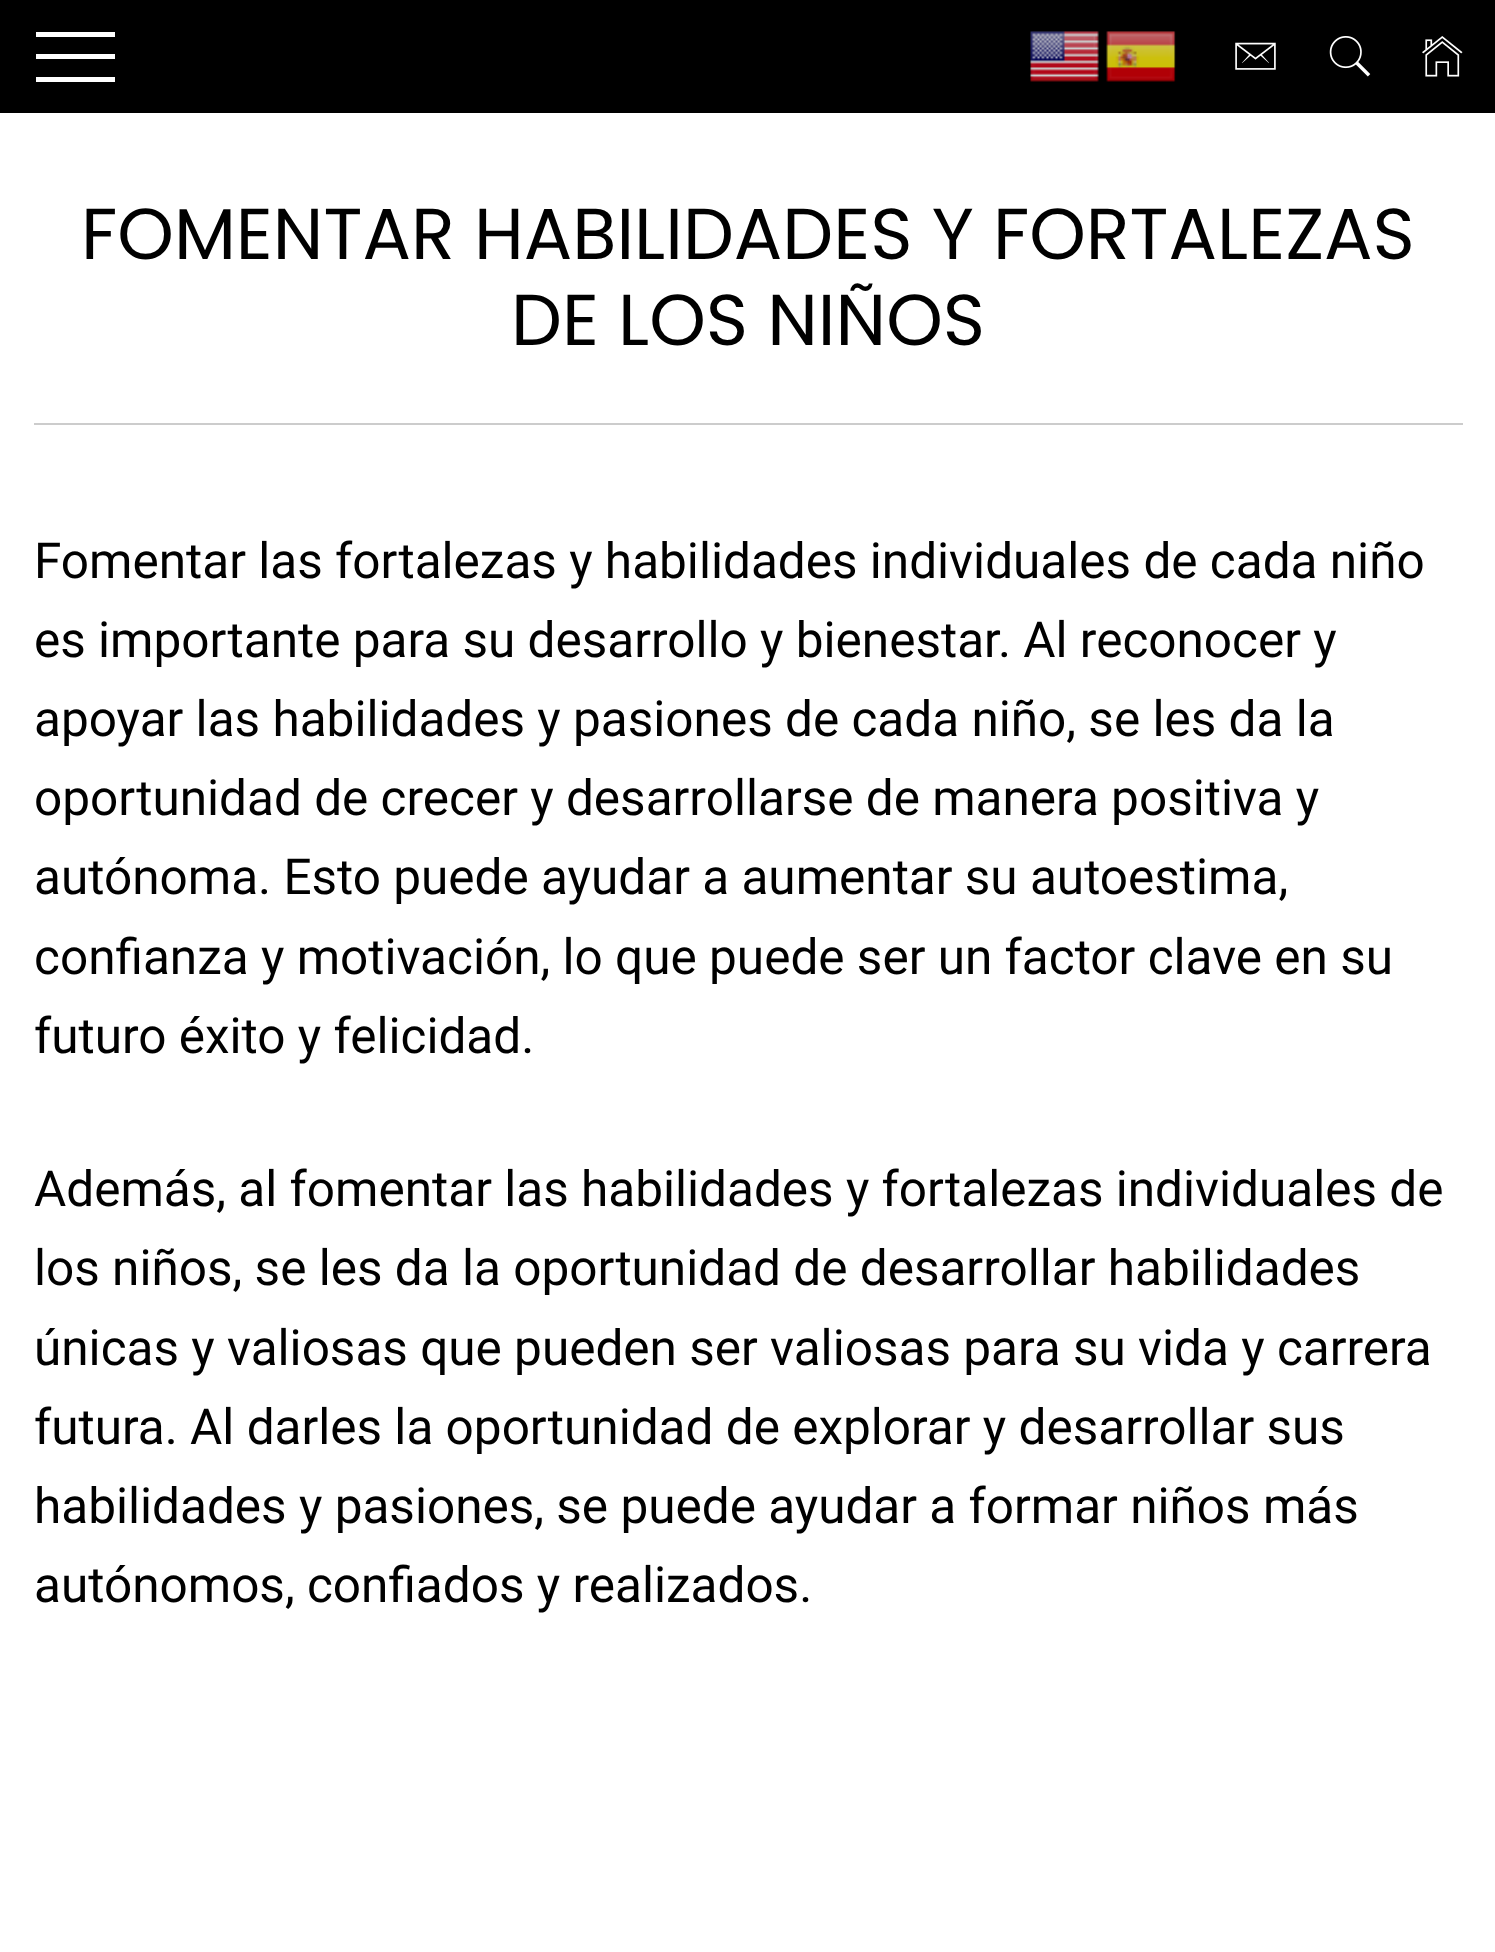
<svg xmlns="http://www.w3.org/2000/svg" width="1495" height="1952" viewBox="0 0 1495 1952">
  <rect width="100%" height="100%" fill="rgb(255,255,255)"/>
  <rect x="0" y="0" width="1495" height="113" fill="rgb(0,0,0)"/>
  <rect x="36" y="32" width="79" height="5" fill="rgb(255,255,255)"/>
  <rect x="36" y="54" width="79" height="5" fill="rgb(255,255,255)"/>
  <rect x="36" y="77" width="79" height="5" fill="rgb(255,255,255)"/>
  <image x="1030" y="31" width="69" height="51" href="pic1.png"/>
  <image x="1106" y="31" width="70" height="51" href="pic2.png"/>
  <image x="1235" y="42" width="41" height="28" href="pic3.png"/>
  <image x="1329" y="36" width="42" height="41" href="pic4.png"/>
  <image x="1422" y="36" width="41" height="41" href="pic5.png"/>
  <g font-family="Poppins" font-size="72" fill="rgb(0,0,0)">
    <text x="81" y="259">FOMENTAR HABILIDADES Y FORTALEZAS</text>
    <text x="511" y="345">DE LOS NIÑOS</text>
  </g>
  <rect x="34" y="423" width="1429" height="2" fill="rgb(204,204,204)"/>
  <g font-family="Roboto" font-size="49.5" fill="rgb(0,0,0)">
    <text>
      <tspan x="34" y="578">Fomentar las fortalezas y habilidades individuales de cada niño</tspan>
      <tspan x="34" y="657">es importante para su desarrollo y bienestar. Al reconocer y</tspan>
      <tspan x="34" y="736">apoyar las habilidades y pasiones de cada niño, se les da la</tspan>
      <tspan x="34" y="815">oportunidad de crecer y desarrollarse de manera positiva y</tspan>
      <tspan x="34" y="894">autónoma. Esto puede ayudar a aumentar su autoestima,</tspan>
      <tspan x="34" y="974">confianza y motivación, lo que puede ser un factor clave en su</tspan>
      <tspan x="34" y="1053">futuro éxito y felicidad.</tspan>
    </text>
    <text>
      <tspan x="34" y="1206">Además, al fomentar las habilidades y fortalezas individuales de</tspan>
      <tspan x="34" y="1285">los niños, se les da la oportunidad de desarrollar habilidades</tspan>
      <tspan x="34" y="1365">únicas y valiosas que pueden ser valiosas para su vida y carrera</tspan>
      <tspan x="34" y="1444">futura. Al darles la oportunidad de explorar y desarrollar sus</tspan>
      <tspan x="34" y="1523">habilidades y pasiones, se puede ayudar a formar niños más</tspan>
      <tspan x="34" y="1602">autónomos, confiados y realizados.</tspan>
    </text>
  </g>
</svg>
